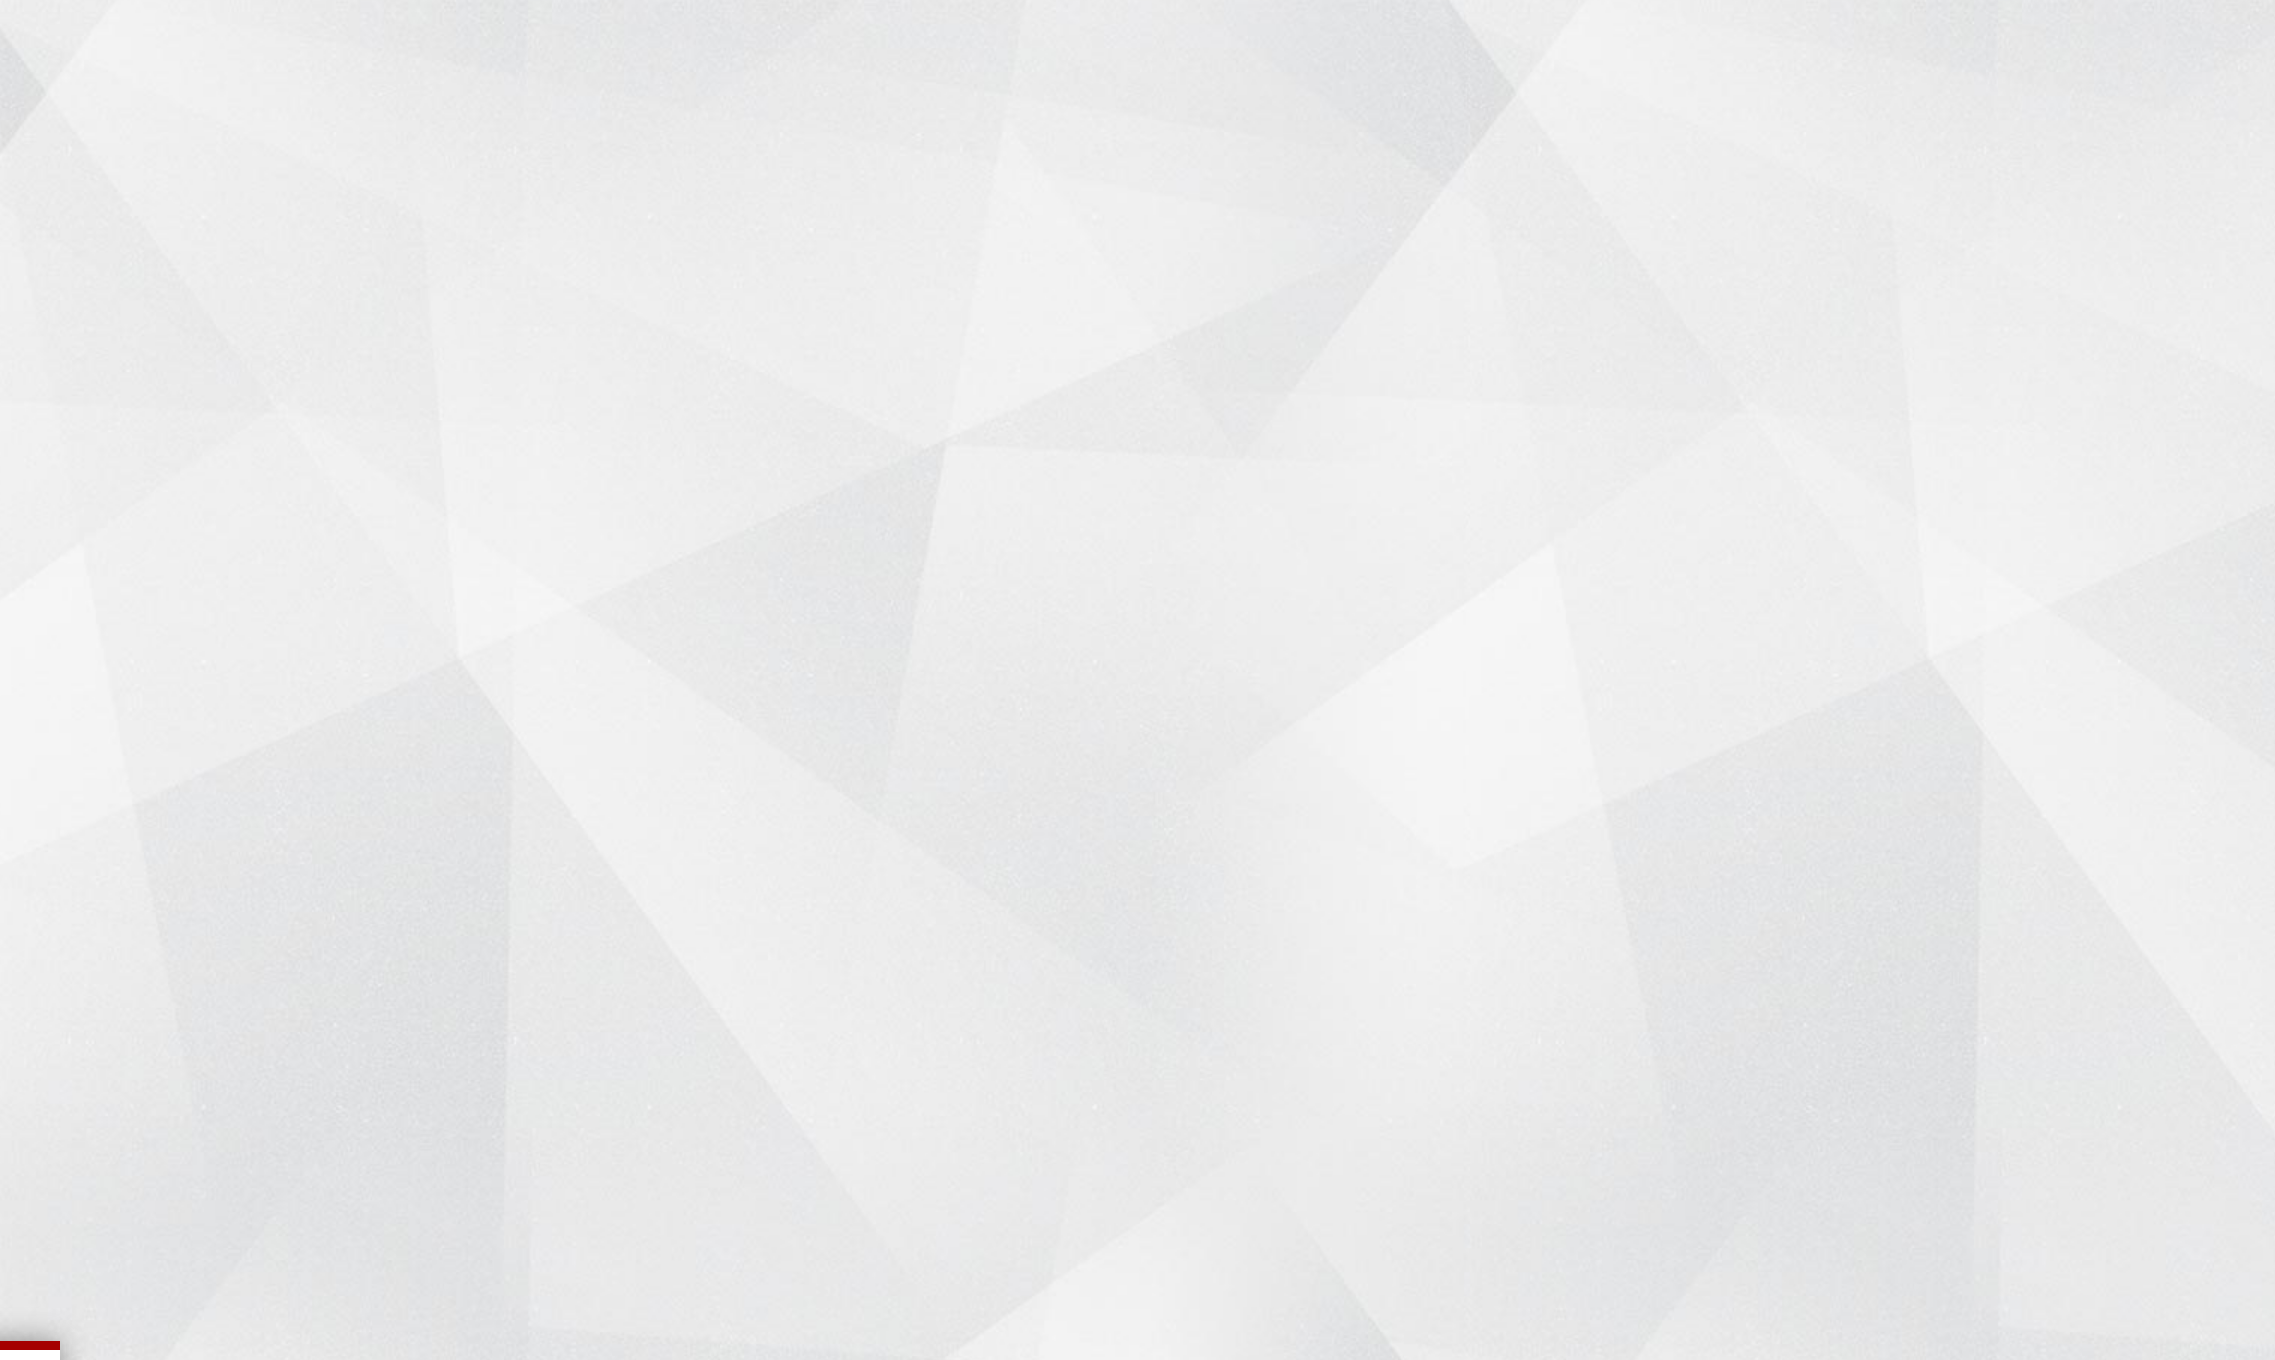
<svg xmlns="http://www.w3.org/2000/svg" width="2275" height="1360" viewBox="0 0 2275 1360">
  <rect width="100%" height="100%" fill="rgb(255,255,255)"/>
  <image x="0" y="0" width="2275" height="1360" href="pic1.png"/>
  <rect x="-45" y="1341" width="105" height="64" fill="rgba(0,0,0,0.4)" filter="blur(15px)"/>
  <rect x="0" y="1341" width="60" height="9" fill="rgb(165,0,0)"/>
  <rect x="0" y="1350" width="60" height="10" fill="rgb(255,255,255)"/>
</svg>
